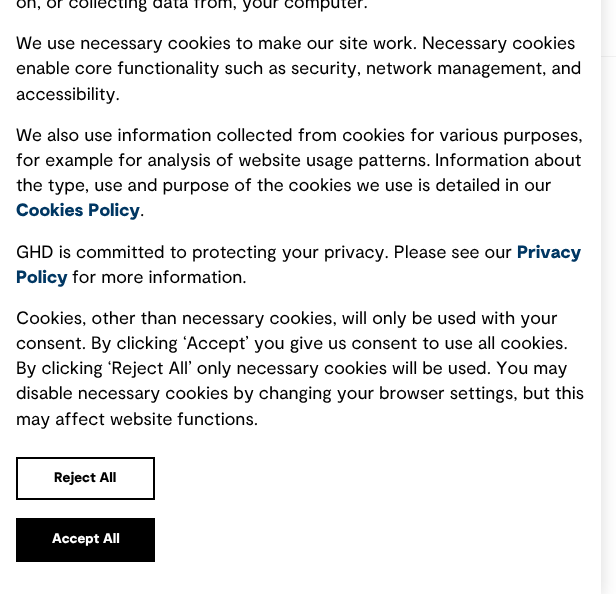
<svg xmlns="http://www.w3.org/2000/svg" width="616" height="594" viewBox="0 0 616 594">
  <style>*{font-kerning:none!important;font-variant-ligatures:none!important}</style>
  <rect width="100%" height="100%" fill="rgb(255,255,255)"/>
  <rect x="601" y="56" width="15" height="1" fill="rgb(242,242,242)"/>
  <rect x="0" y="-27" width="601" height="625" fill="rgba(0,0,0,0.15)" filter="blur(9px)"/>
  <rect x="0" y="0" width="601" height="594" fill="rgb(255,255,255)"/>
  <g font-family="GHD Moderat" font-size="18" fill="rgb(0,0,0)">
    <text x="16" y="8">on, or collecting data from, your</text>
    <text x="284" y="8">computer.</text>
    <text x="16" y="49">We use necessary cookies to make our site</text>
    <text x="373" y="49">work. Necessary cookies</text>
    <text x="16" y="74">enable core functionality such as security,</text>
    <text x="366" y="74">network management, and</text>
    <text x="16" y="100">accessibility.</text>
    <text x="16" y="141">We also use information collected</text>
    <text x="298" y="141">from cookies for various purposes,</text>
    <text x="16" y="166">for example for analysis</text>
    <text x="216" y="166">of website usage patterns.</text>
    <text x="435" y="166">Information about</text>
    <text x="16" y="191">the type, use and purpose of the cookies we use is detailed</text>
    <text x="505" y="191">in our</text>
  </g>
  <text x="16" y="216" font-family="GHD Moderat" font-size="18" font-weight="900" fill="rgb(0,55,99)">Cookies Policy</text>
  <g font-family="GHD Moderat" font-size="18" fill="rgb(0,0,0)">
    <text x="140" y="216">.</text>
    <text x="16" y="258">GHD is committed to protecting your</text>
    <text x="324" y="258">privacy. Please see our</text>
  </g>
  <g font-family="GHD Moderat" font-size="18" font-weight="900" fill="rgb(0,55,99)">
    <text x="517" y="258">Privacy</text>
    <text x="16" y="283">Policy</text>
  </g>
  <g font-family="GHD Moderat" font-size="18" fill="rgb(0,0,0)">
    <text x="72" y="283">for more information.</text>
    <text>
      <tspan x="16" y="324">Cookies, other than necessary cookies, will only be used with your</tspan>
      <tspan x="16" y="349">consent. By clicking ‘Accept’</tspan>
    </text>
    <text x="254" y="349">you give us consent to use</text>
    <text x="478" y="349">all cookies.</text>
    <text x="16" y="374">By clicking ‘Reject All’ only necessary cookies will be used.</text>
    <text x="496" y="374">You may</text>
    <text x="16" y="399">disable necessary cookies by changing your</text>
    <text x="379" y="399">browser settings, but this</text>
    <text x="16" y="425">may affect website</text>
    <text x="177" y="425">functions.</text>
  </g>
  <rect x="17" y="458" width="137" height="41" fill="none" stroke="rgb(0,0,0)" stroke-width="2"/>
  <text x="54" y="482" font-family="GHD Moderat" font-size="14" font-weight="900" fill="rgb(0,0,0)">Reject All</text>
  <rect x="16" y="518" width="139" height="44" fill="rgb(0,0,0)"/>
  <text x="52" y="543" font-family="GHD Moderat" font-size="14" font-weight="900" fill="rgb(255,255,255)">Accept All</text>
</svg>
